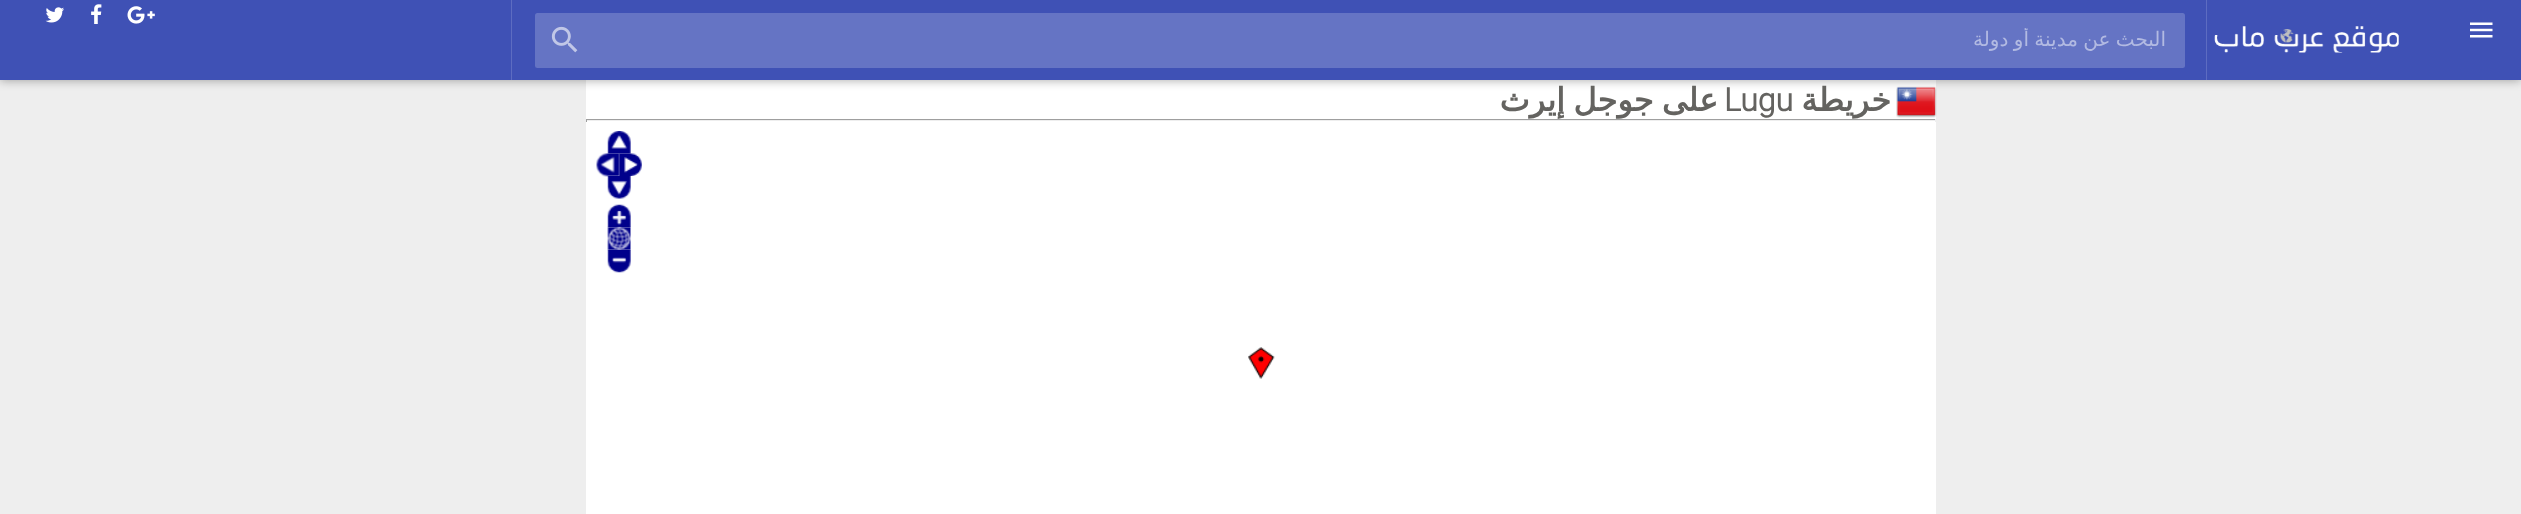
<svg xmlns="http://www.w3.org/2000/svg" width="2521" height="514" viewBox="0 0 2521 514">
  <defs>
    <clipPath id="clip1"><rect x="616" y="28" width="1550" height="23"/></clipPath>
  </defs>
  <rect width="100%" height="100%" fill="rgb(238,238,238)"/>
  <rect x="586" y="80" width="1350" height="434" fill="rgb(255,255,255)"/>
  <image x="1896" y="86" width="41" height="32" href="pic7.png"/>
  <rect x="0" y="1" width="2521" height="80" fill="rgba(0,0,0,0.3)" filter="blur(5px)"/>
  <rect x="0" y="0" width="2521" height="80" fill="rgb(63,81,181)"/>
  <image x="127" y="6" width="28" height="18" href="pic1.png"/>
  <image x="91" y="4" width="11" height="20" href="pic2.png"/>
  <image x="45" y="7" width="19" height="16" href="pic3.png"/>
  <image x="2470" y="22" width="23" height="16" href="pic4.png"/>
  <image x="2214" y="26" width="185" height="27" href="pic5.png"/>
  <rect x="2206" y="0" width="1" height="80" fill="rgb(93,108,193)"/>
  <rect x="511" y="0" width="1" height="80" fill="rgb(93,108,193)"/>
  <rect x="535" y="13" width="1650" height="55" rx="2.5" fill="rgb(101,116,196)"/>
  <g clip-path="url(#clip1)">
    <text x="2166" y="46" word-spacing="-1" font-family="DejaVu Sans" font-size="20" direction="rtl" fill="rgb(178,186,226)">البحث عن مدينة أو دولة</text>
  </g>
  <image x="551" y="26" width="27" height="27" href="pic6.png"/>
  <text x="1891" y="111" font-family="DejaVu Sans" font-size="32" font-weight="bold" direction="rtl" fill="rgb(100,99,96)">خريطة</text>
  <text x="1724" y="111" font-family="Roboto" font-size="32" font-weight="bold" fill="rgb(100,99,96)">Lugu</text>
  <text x="1718" y="111" word-spacing="-2" font-family="DejaVu Sans" font-size="32" font-weight="bold" direction="rtl" fill="rgb(100,99,96)">على جوجل إيرث</text>
  <rect x="586" y="119" width="1350" height="1" fill="rgb(159,159,159)"/>
  <rect x="1935" y="119" width="1" height="3" fill="rgb(238,238,238)"/>
  <rect x="586" y="120" width="1350" height="1" fill="rgb(238,238,238)"/>
  <rect x="586" y="119" width="1" height="3" fill="rgb(159,159,159)"/>
  <image x="607" y="131" width="24" height="23" href="pic8.png"/>
  <image x="596" y="153" width="24" height="24" href="pic10.png"/>
  <image x="619" y="153" width="23" height="23" href="pic9.png"/>
  <image x="607" y="176" width="24" height="23" href="pic11.png"/>
  <image x="607" y="204" width="24" height="24" href="pic12.png"/>
  <image x="607" y="226" width="24" height="25" href="pic13.png"/>
  <image x="607" y="249" width="24" height="24" href="pic14.png"/>
  <image x="1248" y="347" width="27" height="32" href="pic15.png"/>
</svg>
